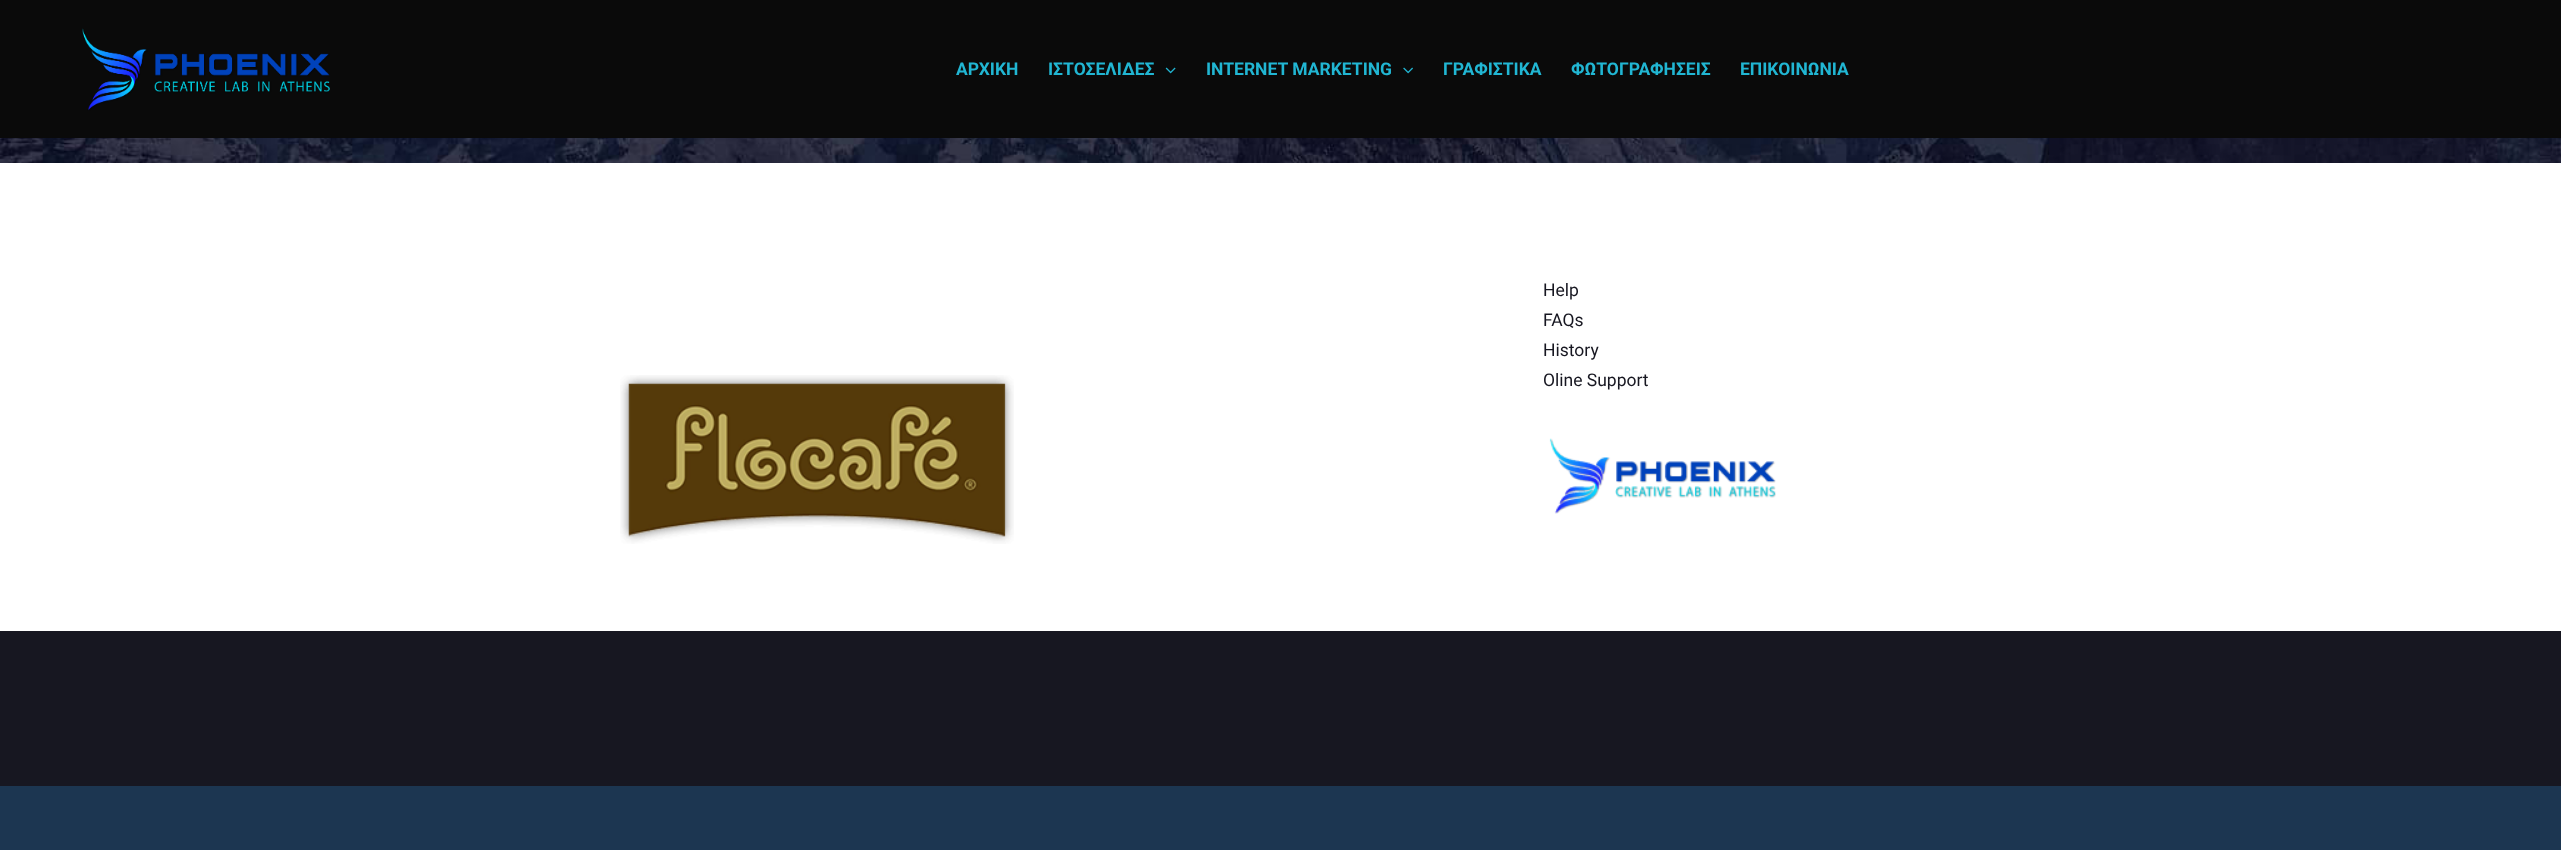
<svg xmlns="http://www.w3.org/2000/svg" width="2561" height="850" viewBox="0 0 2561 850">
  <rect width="100%" height="100%" fill="rgb(255,255,255)"/>
  <rect x="0" y="0" width="2561" height="138" fill="rgb(10,10,10)"/>
  <image x="82" y="28" width="248" height="83" href="pic1.png"/>
  <g font-family="Roboto" font-size="17.5" font-weight="bold" fill="rgb(33,182,211)">
    <text x="956" y="75">ΑΡΧΙΚΗ</text>
    <text x="1048" y="75">ΙΣΤΟΣΕΛΙΔΕΣ</text>
  </g>
  <image x="1165" y="67" width="11" height="7" href="pic2.png"/>
  <text x="1206" y="75" font-family="Roboto" font-size="17.5" font-weight="bold" fill="rgb(33,182,211)">INTERNET MARKETING</text>
  <image x="1403" y="67" width="10" height="7" href="pic3.png"/>
  <g font-family="Roboto" font-size="17.5" font-weight="bold" fill="rgb(33,182,211)">
    <text x="1443" y="75">ΓΡΑΦΙΣΤΙΚΑ</text>
    <text x="1571" y="75">ΦΩΤΟΓΡΑΦΗΣΕΙΣ</text>
    <text x="1740" y="75">ΕΠΙΚΟΙΝΩΝΙΑ</text>
  </g>
  <image x="0" y="138" width="2561" height="25" href="pic4.png"/>
  <g font-family="Roboto" font-size="17.5" fill="rgb(23,23,33)">
    <text>
      <tspan x="1543" y="296">Help</tspan>
      <tspan x="1543" y="326">FAQs</tspan>
      <tspan x="1543" y="356">History</tspan>
      <tspan x="1543" y="386">Oline Support</tspan>
    </text>
  </g>
  <image x="1549" y="438" width="227" height="76" href="pic5.png"/>
  <image x="620" y="375" width="394" height="169" href="pic6.png"/>
  <rect x="0" y="631" width="2561" height="155" fill="rgb(23,23,33)"/>
  <rect x="0" y="786" width="2561" height="64" fill="rgb(28,54,81)"/>
</svg>
